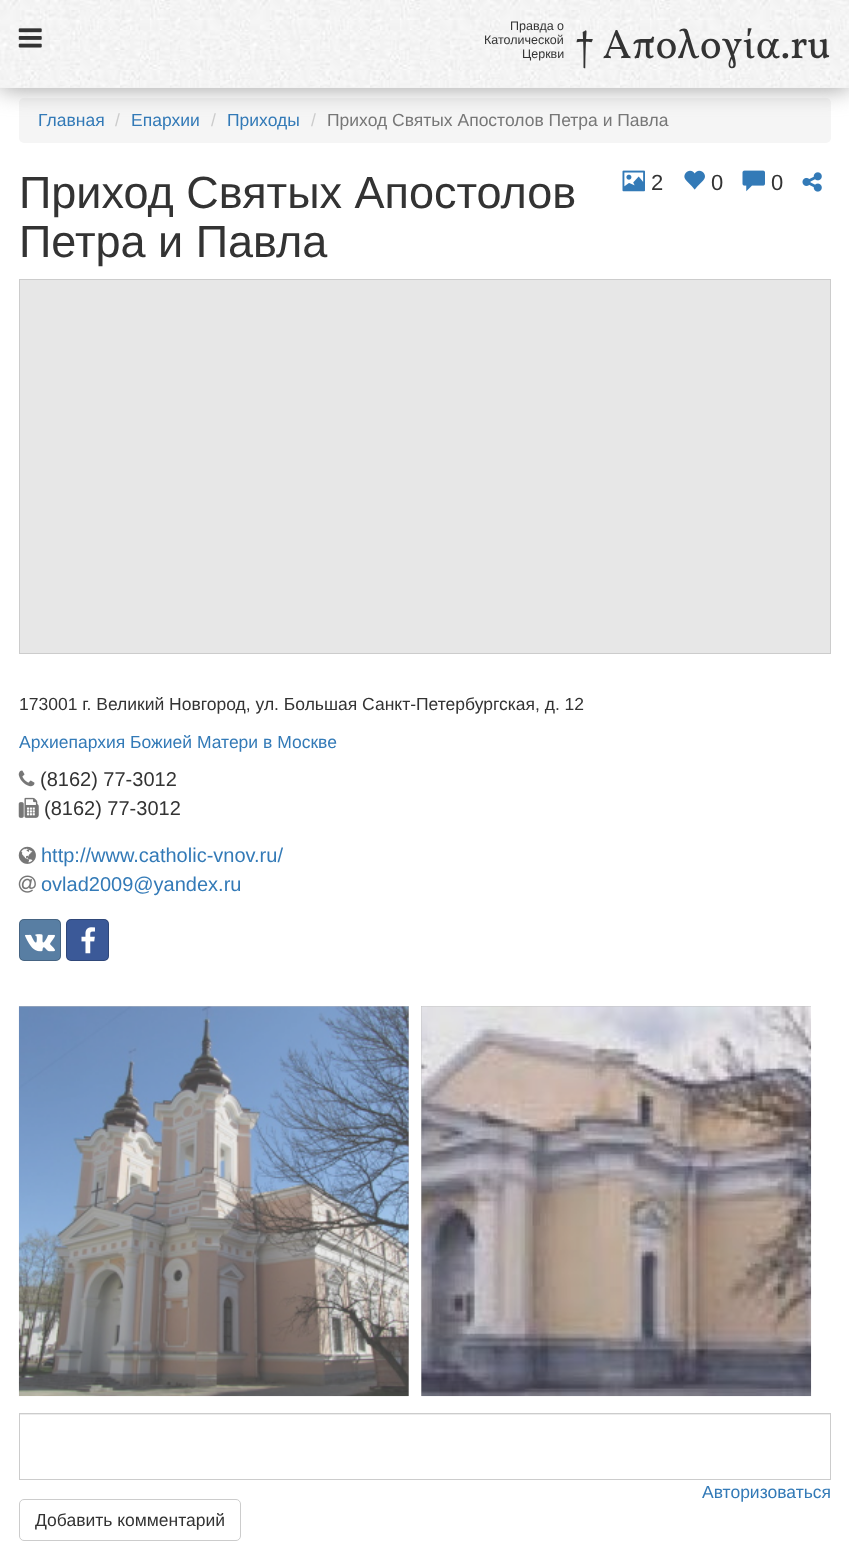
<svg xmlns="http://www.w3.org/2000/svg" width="849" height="1564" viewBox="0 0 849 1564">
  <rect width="100%" height="100%" fill="rgb(255,255,255)"/>
  <rect x="19" y="98" width="812" height="45" rx="5" fill="rgb(245,245,245)"/>
  <rect x="0" y="0" width="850" height="88" fill="rgb(153,153,153)" filter="blur(12.5px)"/>
  <rect x="0" y="87" width="849" height="1" fill="rgb(240,240,240)"/>
  <image x="0" y="0" width="849" height="88" href="pic1.png"/>
  <image x="18" y="28" width="24" height="20" href="pic2.png"/>
  <g font-family="Liberation Sans" font-size="12.5" fill="rgb(51,51,51)">
    <text x="510" y="30">Правда о</text>
    <text x="484" y="44">Католической</text>
    <text x="522" y="58">Церкви</text>
  </g>
  <text x="575" y="58" font-family="Vollkorn" font-size="41.25" fill="rgb(51,51,51)">† Απολογία.ru</text>
  <text x="38" y="126" font-family="Liberation Sans" font-size="17.5" fill="rgb(51,122,183)">Главная</text>
  <text x="115" y="126" font-family="Liberation Sans" font-size="17.5" fill="rgb(204,204,204)">/</text>
  <text x="131" y="126" font-family="Liberation Sans" font-size="17.5" fill="rgb(51,122,183)">Епархии</text>
  <text x="211" y="126" font-family="Liberation Sans" font-size="17.5" fill="rgb(204,204,204)">/</text>
  <text x="227" y="126" font-family="Liberation Sans" font-size="17.5" fill="rgb(51,122,183)">Приходы</text>
  <text x="311" y="126" font-family="Liberation Sans" font-size="17.5" fill="rgb(204,204,204)">/</text>
  <text x="327" y="126" font-family="Liberation Sans" font-size="17.5" fill="rgb(119,119,119)">Приход Святых Апостолов Петра и Павла</text>
  <g font-family="Liberation Sans" font-size="45" fill="rgb(51,51,51)">
    <text>
      <tspan x="19" y="208">Приход Святых Апостолов</tspan>
      <tspan x="19" y="257">Петра и Павла</tspan>
    </text>
  </g>
  <image x="622" y="170" width="23" height="22" href="pic3.png"/>
  <text x="651" y="190" font-family="Liberation Sans" font-size="22" fill="rgb(51,51,51)">2</text>
  <image x="684" y="170" width="21" height="20" href="pic4.png"/>
  <text x="711" y="190" font-family="Liberation Sans" font-size="22" fill="rgb(51,51,51)">0</text>
  <image x="742" y="170" width="23" height="22" href="pic5.png"/>
  <text x="771" y="190" font-family="Liberation Sans" font-size="22" fill="rgb(51,51,51)">0</text>
  <image x="802" y="172" width="20" height="20" href="pic6.png"/>
  <rect x="19.5" y="279.5" width="811" height="374" fill="rgb(231,231,231)" stroke="rgb(204,204,204)"/>
  <text x="19" y="710" font-family="Liberation Sans" font-size="17.5" fill="rgb(51,51,51)">173001 г. Великий Новгород, ул. Большая Санкт-Петербургская, д. 12</text>
  <text x="19" y="748" font-family="Liberation Sans" font-size="17.5" fill="rgb(51,122,183)">Архиепархия Божией Матери в Москве</text>
  <image x="18" y="770" width="17" height="17" href="pic7.png"/>
  <text x="40" y="786" font-family="Liberation Sans" font-size="20" fill="rgb(51,51,51)">(8162) 77-3012</text>
  <image x="18" y="797" width="21" height="21" href="pic8.png"/>
  <text x="44" y="815" font-family="Liberation Sans" font-size="20" fill="rgb(51,51,51)">(8162) 77-3012</text>
  <image x="18" y="846" width="18" height="18" href="pic9.png"/>
  <text x="41" y="862" font-family="Liberation Sans" font-size="20" fill="rgb(51,122,183)">http://www.catholic-vnov.ru/</text>
  <image x="18" y="875" width="18" height="18" href="pic10.png"/>
  <text x="41" y="891" font-family="Liberation Sans" font-size="20" fill="rgb(51,122,183)">ovlad2009@yandex.ru</text>
  <rect x="19" y="919" width="42" height="42" rx="5" fill="rgb(88,126,163)"/>
  <rect x="19.5" y="919.5" width="41" height="41" rx="4.5" fill="none" stroke="rgba(0,0,0,0.2)"/>
  <image x="25" y="934" width="30" height="18" href="pic11.png"/>
  <rect x="66" y="919" width="43" height="42" rx="5" fill="rgb(59,89,152)"/>
  <rect x="66.5" y="919.5" width="42" height="41" rx="4.5" fill="none" stroke="rgba(0,0,0,0.2)"/>
  <image x="81" y="927" width="14" height="27" href="pic12.png"/>
  <rect x="19" y="1006" width="390" height="390" fill="rgb(194,194,194)"/>
  <image x="18" y="1006" width="391" height="391" href="pic13.png"/>
  <rect x="421" y="1006" width="390" height="390" fill="rgb(194,194,194)"/>
  <image x="421" y="1006" width="391" height="391" href="pic14.png"/>
  <rect x="20" y="1414" width="810" height="1" fill="rgb(236,236,236)"/>
  <rect x="19.5" y="1413.5" width="811" height="66" fill="none" stroke="rgb(204,204,204)"/>
  <text x="702" y="1498" font-family="Liberation Sans" font-size="17.5" fill="rgb(51,122,183)">Авторизоваться</text>
  <rect x="19.5" y="1499.5" width="221" height="41" rx="4.5" fill="none" stroke="rgb(204,204,204)"/>
  <text x="35" y="1526" font-family="Liberation Sans" font-size="17.5" fill="rgb(51,51,51)">Добавить комментарий</text>
</svg>
